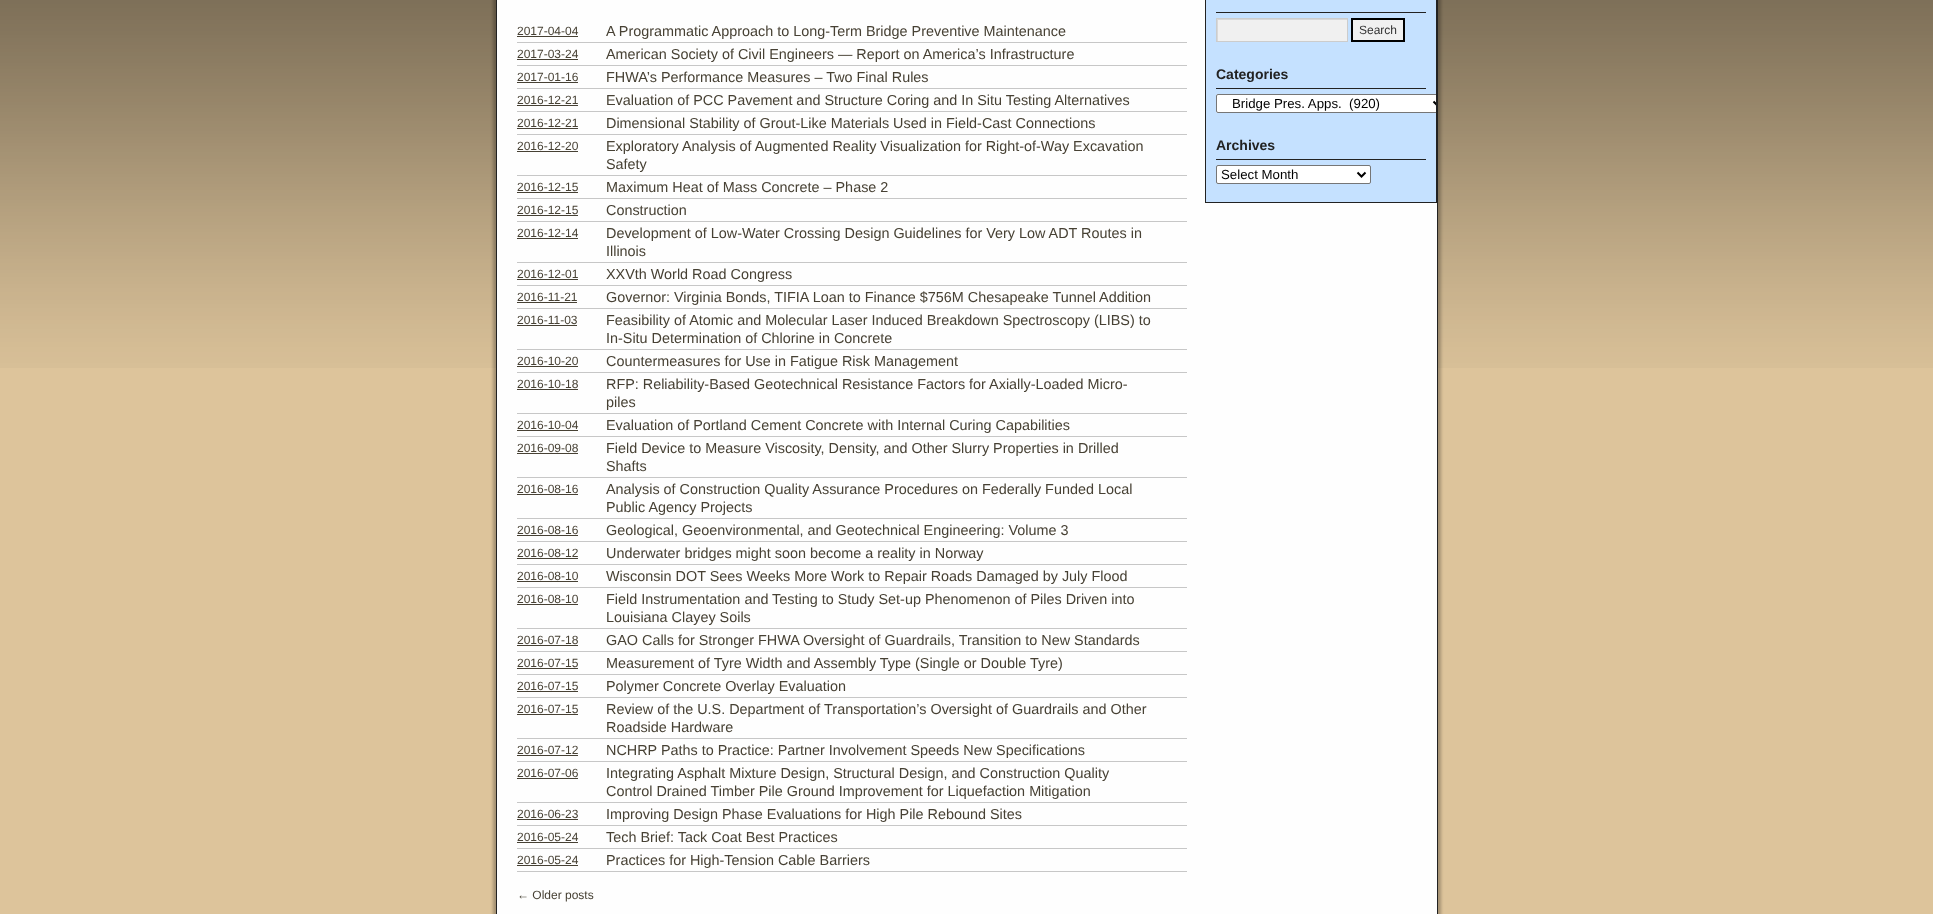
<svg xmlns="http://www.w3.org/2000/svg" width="1933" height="914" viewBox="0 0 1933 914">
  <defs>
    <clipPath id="clip1"><rect x="1217" y="19" width="130" height="22"/></clipPath>
    <clipPath id="clip2"><rect x="1206" y="0" width="230" height="202"/></clipPath>
  </defs>
  <rect width="100%" height="100%" fill="rgb(221,196,155)"/>
  <image x="0" y="0" width="1933" height="368" href="pic1.png"/>
  <rect x="493" y="-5" width="948" height="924" fill="rgba(0,0,0,0.25)" filter="blur(1.5px)"/>
  <rect x="496.5" y="-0.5" width="941" height="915" fill="rgb(254,254,254)" stroke="rgb(34,34,34)"/>
  <rect x="517" y="42" width="670" height="1" fill="rgb(199,199,199)"/>
  <text x="517" y="35" font-family="Liberation Sans" font-size="12" fill="rgb(71,65,52)">2017-04-04</text>
  <rect x="517" y="36" width="61" height="1" fill="rgb(71,65,52)"/>
  <text x="606" y="36" font-family="Liberation Sans" font-size="14.4" fill="rgb(71,65,52)">A Programmatic Approach to Long-Term Bridge Preventive Maintenance</text>
  <rect x="517" y="65" width="670" height="1" fill="rgb(199,199,199)"/>
  <text x="517" y="58" font-family="Liberation Sans" font-size="12" fill="rgb(71,65,52)">2017-03-24</text>
  <rect x="517" y="59" width="61" height="1" fill="rgb(71,65,52)"/>
  <text x="606" y="59" font-family="Liberation Sans" font-size="14.4" fill="rgb(71,65,52)">American Society of Civil Engineers — Report on America’s Infrastructure</text>
  <rect x="517" y="88" width="670" height="1" fill="rgb(199,199,199)"/>
  <text x="517" y="81" font-family="Liberation Sans" font-size="12" fill="rgb(71,65,52)">2017-01-16</text>
  <rect x="517" y="82" width="61" height="1" fill="rgb(71,65,52)"/>
  <text x="606" y="82" font-family="Liberation Sans" font-size="14.4" fill="rgb(71,65,52)">FHWA’s Performance Measures – Two Final Rules</text>
  <rect x="517" y="111" width="670" height="1" fill="rgb(199,199,199)"/>
  <text x="517" y="104" font-family="Liberation Sans" font-size="12" fill="rgb(71,65,52)">2016-12-21</text>
  <rect x="517" y="105" width="61" height="1" fill="rgb(71,65,52)"/>
  <text x="606" y="105" font-family="Liberation Sans" font-size="14.4" fill="rgb(71,65,52)">Evaluation of PCC Pavement and Structure Coring and In Situ Testing Alternatives</text>
  <rect x="517" y="134" width="670" height="1" fill="rgb(199,199,199)"/>
  <text x="517" y="127" font-family="Liberation Sans" font-size="12" fill="rgb(71,65,52)">2016-12-21</text>
  <rect x="517" y="128" width="61" height="1" fill="rgb(71,65,52)"/>
  <text x="606" y="128" font-family="Liberation Sans" font-size="14.4" fill="rgb(71,65,52)">Dimensional Stability of Grout-Like Materials Used in Field-Cast Connections</text>
  <rect x="517" y="175" width="670" height="1" fill="rgb(199,199,199)"/>
  <text x="517" y="150" font-family="Liberation Sans" font-size="12" fill="rgb(71,65,52)">2016-12-20</text>
  <rect x="517" y="151" width="61" height="1" fill="rgb(71,65,52)"/>
  <g font-family="Liberation Sans" font-size="14.4" fill="rgb(71,65,52)">
    <text>
      <tspan x="606" y="151">Exploratory Analysis of Augmented Reality Visualization for Right-of-Way Excavation</tspan>
      <tspan x="606" y="169">Safety</tspan>
    </text>
  </g>
  <rect x="517" y="198" width="670" height="1" fill="rgb(199,199,199)"/>
  <text x="517" y="191" font-family="Liberation Sans" font-size="12" fill="rgb(71,65,52)">2016-12-15</text>
  <rect x="517" y="192" width="61" height="1" fill="rgb(71,65,52)"/>
  <text x="606" y="192" font-family="Liberation Sans" font-size="14.4" fill="rgb(71,65,52)">Maximum Heat of Mass Concrete – Phase 2</text>
  <rect x="517" y="221" width="670" height="1" fill="rgb(199,199,199)"/>
  <text x="517" y="214" font-family="Liberation Sans" font-size="12" fill="rgb(71,65,52)">2016-12-15</text>
  <rect x="517" y="215" width="61" height="1" fill="rgb(71,65,52)"/>
  <text x="606" y="215" font-family="Liberation Sans" font-size="14.4" fill="rgb(71,65,52)">Construction</text>
  <rect x="517" y="262" width="670" height="1" fill="rgb(199,199,199)"/>
  <text x="517" y="237" font-family="Liberation Sans" font-size="12" fill="rgb(71,65,52)">2016-12-14</text>
  <rect x="517" y="238" width="61" height="1" fill="rgb(71,65,52)"/>
  <g font-family="Liberation Sans" font-size="14.4" fill="rgb(71,65,52)">
    <text>
      <tspan x="606" y="238">Development of Low-Water Crossing Design Guidelines for Very Low ADT Routes in</tspan>
      <tspan x="606" y="256">Illinois</tspan>
    </text>
  </g>
  <rect x="517" y="285" width="670" height="1" fill="rgb(199,199,199)"/>
  <text x="517" y="278" font-family="Liberation Sans" font-size="12" fill="rgb(71,65,52)">2016-12-01</text>
  <rect x="517" y="279" width="61" height="1" fill="rgb(71,65,52)"/>
  <text x="606" y="279" font-family="Liberation Sans" font-size="14.4" fill="rgb(71,65,52)">XXVth World Road Congress</text>
  <rect x="517" y="308" width="670" height="1" fill="rgb(199,199,199)"/>
  <text x="517" y="301" font-family="Liberation Sans" font-size="12" fill="rgb(71,65,52)">2016-11-21</text>
  <rect x="517" y="302" width="60" height="1" fill="rgb(71,65,52)"/>
  <text x="606" y="302" font-family="Liberation Sans" font-size="14.4" fill="rgb(71,65,52)">Governor: Virginia Bonds, TIFIA Loan to Finance $756M Chesapeake Tunnel Addition</text>
  <rect x="517" y="349" width="670" height="1" fill="rgb(199,199,199)"/>
  <text x="517" y="324" font-family="Liberation Sans" font-size="12" fill="rgb(71,65,52)">2016-11-03</text>
  <rect x="517" y="325" width="60" height="1" fill="rgb(71,65,52)"/>
  <g font-family="Liberation Sans" font-size="14.4" fill="rgb(71,65,52)">
    <text>
      <tspan x="606" y="325">Feasibility of Atomic and Molecular Laser Induced Breakdown Spectroscopy (LIBS) to</tspan>
      <tspan x="606" y="343">In-Situ Determination of Chlorine in Concrete</tspan>
    </text>
  </g>
  <rect x="517" y="372" width="670" height="1" fill="rgb(199,199,199)"/>
  <text x="517" y="365" font-family="Liberation Sans" font-size="12" fill="rgb(71,65,52)">2016-10-20</text>
  <rect x="517" y="366" width="61" height="1" fill="rgb(71,65,52)"/>
  <text x="606" y="366" font-family="Liberation Sans" font-size="14.4" fill="rgb(71,65,52)">Countermeasures for Use in Fatigue Risk Management</text>
  <rect x="517" y="413" width="670" height="1" fill="rgb(199,199,199)"/>
  <text x="517" y="388" font-family="Liberation Sans" font-size="12" fill="rgb(71,65,52)">2016-10-18</text>
  <rect x="517" y="389" width="61" height="1" fill="rgb(71,65,52)"/>
  <g font-family="Liberation Sans" font-size="14.4" fill="rgb(71,65,52)">
    <text>
      <tspan x="606" y="389">RFP: Reliability-Based Geotechnical Resistance Factors for Axially-Loaded Micro-</tspan>
      <tspan x="606" y="407">piles</tspan>
    </text>
  </g>
  <rect x="517" y="436" width="670" height="1" fill="rgb(199,199,199)"/>
  <text x="517" y="429" font-family="Liberation Sans" font-size="12" fill="rgb(71,65,52)">2016-10-04</text>
  <rect x="517" y="430" width="61" height="1" fill="rgb(71,65,52)"/>
  <text x="606" y="430" font-family="Liberation Sans" font-size="14.4" fill="rgb(71,65,52)">Evaluation of Portland Cement Concrete with Internal Curing Capabilities</text>
  <rect x="517" y="477" width="670" height="1" fill="rgb(199,199,199)"/>
  <text x="517" y="452" font-family="Liberation Sans" font-size="12" fill="rgb(71,65,52)">2016-09-08</text>
  <rect x="517" y="453" width="61" height="1" fill="rgb(71,65,52)"/>
  <g font-family="Liberation Sans" font-size="14.4" fill="rgb(71,65,52)">
    <text>
      <tspan x="606" y="453">Field Device to Measure Viscosity, Density, and Other Slurry Properties in Drilled</tspan>
      <tspan x="606" y="471">Shafts</tspan>
    </text>
  </g>
  <rect x="517" y="518" width="670" height="1" fill="rgb(199,199,199)"/>
  <text x="517" y="493" font-family="Liberation Sans" font-size="12" fill="rgb(71,65,52)">2016-08-16</text>
  <rect x="517" y="494" width="61" height="1" fill="rgb(71,65,52)"/>
  <g font-family="Liberation Sans" font-size="14.4" fill="rgb(71,65,52)">
    <text>
      <tspan x="606" y="494">Analysis of Construction Quality Assurance Procedures on Federally Funded Local</tspan>
      <tspan x="606" y="512">Public Agency Projects</tspan>
    </text>
  </g>
  <rect x="517" y="541" width="670" height="1" fill="rgb(199,199,199)"/>
  <text x="517" y="534" font-family="Liberation Sans" font-size="12" fill="rgb(71,65,52)">2016-08-16</text>
  <rect x="517" y="535" width="61" height="1" fill="rgb(71,65,52)"/>
  <text x="606" y="535" font-family="Liberation Sans" font-size="14.4" fill="rgb(71,65,52)">Geological, Geoenvironmental, and Geotechnical Engineering: Volume 3</text>
  <rect x="517" y="564" width="670" height="1" fill="rgb(199,199,199)"/>
  <text x="517" y="557" font-family="Liberation Sans" font-size="12" fill="rgb(71,65,52)">2016-08-12</text>
  <rect x="517" y="558" width="61" height="1" fill="rgb(71,65,52)"/>
  <text x="606" y="558" font-family="Liberation Sans" font-size="14.4" fill="rgb(71,65,52)">Underwater bridges might soon become a reality in Norway</text>
  <rect x="517" y="587" width="670" height="1" fill="rgb(199,199,199)"/>
  <text x="517" y="580" font-family="Liberation Sans" font-size="12" fill="rgb(71,65,52)">2016-08-10</text>
  <rect x="517" y="581" width="61" height="1" fill="rgb(71,65,52)"/>
  <text x="606" y="581" font-family="Liberation Sans" font-size="14.4" fill="rgb(71,65,52)">Wisconsin DOT Sees Weeks More Work to Repair Roads Damaged by July Flood</text>
  <rect x="517" y="628" width="670" height="1" fill="rgb(199,199,199)"/>
  <text x="517" y="603" font-family="Liberation Sans" font-size="12" fill="rgb(71,65,52)">2016-08-10</text>
  <rect x="517" y="604" width="61" height="1" fill="rgb(71,65,52)"/>
  <g font-family="Liberation Sans" font-size="14.4" fill="rgb(71,65,52)">
    <text>
      <tspan x="606" y="604">Field Instrumentation and Testing to Study Set-up Phenomenon of Piles Driven into</tspan>
      <tspan x="606" y="622">Louisiana Clayey Soils</tspan>
    </text>
  </g>
  <rect x="517" y="651" width="670" height="1" fill="rgb(199,199,199)"/>
  <text x="517" y="644" font-family="Liberation Sans" font-size="12" fill="rgb(71,65,52)">2016-07-18</text>
  <rect x="517" y="645" width="61" height="1" fill="rgb(71,65,52)"/>
  <text x="606" y="645" font-family="Liberation Sans" font-size="14.4" fill="rgb(71,65,52)">GAO Calls for Stronger FHWA Oversight of Guardrails, Transition to New Standards</text>
  <rect x="517" y="674" width="670" height="1" fill="rgb(199,199,199)"/>
  <text x="517" y="667" font-family="Liberation Sans" font-size="12" fill="rgb(71,65,52)">2016-07-15</text>
  <rect x="517" y="668" width="61" height="1" fill="rgb(71,65,52)"/>
  <text x="606" y="668" font-family="Liberation Sans" font-size="14.4" fill="rgb(71,65,52)">Measurement of Tyre Width and Assembly Type (Single or Double Tyre)</text>
  <rect x="517" y="697" width="670" height="1" fill="rgb(199,199,199)"/>
  <text x="517" y="690" font-family="Liberation Sans" font-size="12" fill="rgb(71,65,52)">2016-07-15</text>
  <rect x="517" y="691" width="61" height="1" fill="rgb(71,65,52)"/>
  <text x="606" y="691" font-family="Liberation Sans" font-size="14.4" fill="rgb(71,65,52)">Polymer Concrete Overlay Evaluation</text>
  <rect x="517" y="738" width="670" height="1" fill="rgb(199,199,199)"/>
  <text x="517" y="713" font-family="Liberation Sans" font-size="12" fill="rgb(71,65,52)">2016-07-15</text>
  <rect x="517" y="714" width="61" height="1" fill="rgb(71,65,52)"/>
  <g font-family="Liberation Sans" font-size="14.4" fill="rgb(71,65,52)">
    <text>
      <tspan x="606" y="714">Review of the U.S. Department of Transportation’s Oversight of Guardrails and Other</tspan>
      <tspan x="606" y="732">Roadside Hardware</tspan>
    </text>
  </g>
  <rect x="517" y="761" width="670" height="1" fill="rgb(199,199,199)"/>
  <text x="517" y="754" font-family="Liberation Sans" font-size="12" fill="rgb(71,65,52)">2016-07-12</text>
  <rect x="517" y="755" width="61" height="1" fill="rgb(71,65,52)"/>
  <text x="606" y="755" font-family="Liberation Sans" font-size="14.4" fill="rgb(71,65,52)">NCHRP Paths to Practice: Partner Involvement Speeds New Specifications</text>
  <rect x="517" y="802" width="670" height="1" fill="rgb(199,199,199)"/>
  <text x="517" y="777" font-family="Liberation Sans" font-size="12" fill="rgb(71,65,52)">2016-07-06</text>
  <rect x="517" y="778" width="61" height="1" fill="rgb(71,65,52)"/>
  <g font-family="Liberation Sans" font-size="14.4" fill="rgb(71,65,52)">
    <text>
      <tspan x="606" y="778">Integrating Asphalt Mixture Design, Structural Design, and Construction Quality</tspan>
      <tspan x="606" y="796">Control Drained Timber Pile Ground Improvement for Liquefaction Mitigation</tspan>
    </text>
  </g>
  <rect x="517" y="825" width="670" height="1" fill="rgb(199,199,199)"/>
  <text x="517" y="818" font-family="Liberation Sans" font-size="12" fill="rgb(71,65,52)">2016-06-23</text>
  <rect x="517" y="819" width="61" height="1" fill="rgb(71,65,52)"/>
  <text x="606" y="819" font-family="Liberation Sans" font-size="14.4" fill="rgb(71,65,52)">Improving Design Phase Evaluations for High Pile Rebound Sites</text>
  <rect x="517" y="848" width="670" height="1" fill="rgb(199,199,199)"/>
  <text x="517" y="841" font-family="Liberation Sans" font-size="12" fill="rgb(71,65,52)">2016-05-24</text>
  <rect x="517" y="842" width="61" height="1" fill="rgb(71,65,52)"/>
  <text x="606" y="842" font-family="Liberation Sans" font-size="14.4" fill="rgb(71,65,52)">Tech Brief: Tack Coat Best Practices</text>
  <rect x="517" y="871" width="670" height="1" fill="rgb(199,199,199)"/>
  <text x="517" y="864" font-family="Liberation Sans" font-size="12" fill="rgb(71,65,52)">2016-05-24</text>
  <rect x="517" y="865" width="61" height="1" fill="rgb(71,65,52)"/>
  <text x="606" y="865" font-family="Liberation Sans" font-size="14.4" fill="rgb(71,65,52)">Practices for High-Tension Cable Barriers</text>
  <text x="517" y="899" font-family="Liberation Sans" font-size="12" fill="rgb(71,65,52)">← Older posts</text>
  <rect x="1205.5" y="-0.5" width="231" height="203" fill="rgb(197,225,255)" stroke="rgb(34,34,34)"/>
  <rect x="1216" y="12" width="210" height="1" fill="rgb(34,34,34)"/>
  <rect x="1218" y="20" width="129" height="21" fill="rgb(240,240,240)"/>
  <g clip-path="url(#clip1)">
    <path d="M1118-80H1446V140H1118ZM1218 20H1348V42H1218Z" fill="rgb(216,216,216)" fill-rule="evenodd"/>
  </g>
  <rect x="1216.5" y="18.5" width="131" height="23" fill="none" stroke="rgb(204,204,204)"/>
  <rect x="1352" y="19" width="52" height="22" fill="rgb(240,240,240)" stroke="rgb(0,0,0)" stroke-width="2"/>
  <text x="1359" y="34" font-family="Liberation Sans" font-size="12" fill="rgb(51,51,51)">Search</text>
  <rect x="1216" y="88" width="210" height="1" fill="rgb(34,34,34)"/>
  <text x="1216" y="79" font-family="Liberation Sans" font-size="14" font-weight="bold" fill="rgb(34,34,34)">Categories</text>
  <path d="M1218 94H1436V113H1218C1217 113 1216 112 1216 111V96C1216 95 1217 94 1218 94Z" fill="rgb(255,255,255)"/>
  <g clip-path="url(#clip2)">
    <rect x="1216.5" y="94.5" width="230" height="18" rx="1.5" fill="none" stroke="rgb(118,118,118)"/>
    <path d="M1433.5 101.5L1437.5 105.5L1441.5 101.5" fill="none" stroke="rgb(0,0,0)" stroke-width="2"/>
  </g>
  <text x="1232" y="108" font-family="Liberation Sans" font-size="13.25" fill="rgb(0,0,0)" xml:space="preserve">Bridge Pres. Apps.  (920)</text>
  <rect x="1216" y="159" width="210" height="1" fill="rgb(34,34,34)"/>
  <text x="1216" y="150" font-family="Liberation Sans" font-size="14" font-weight="bold" fill="rgb(34,34,34)">Archives</text>
  <rect x="1216.5" y="165.5" width="154" height="18" rx="1.5" fill="rgb(255,255,255)" stroke="rgb(118,118,118)"/>
  <path d="M1357.5 172.5L1361.5 176.5L1365.5 172.5" fill="none" stroke="rgb(0,0,0)" stroke-width="2"/>
  <text x="1221" y="179" font-family="Liberation Sans" font-size="13.25" fill="rgb(0,0,0)">Select Month</text>
</svg>
